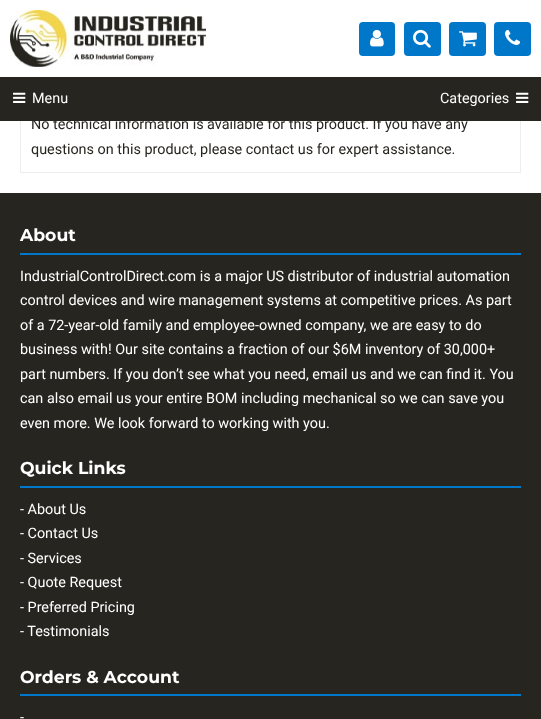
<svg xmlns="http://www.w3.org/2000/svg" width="541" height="719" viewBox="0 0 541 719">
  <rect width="100%" height="100%" fill="rgb(255,255,255)"/>
  <image x="10" y="10" width="196" height="57" href="pic1.png"/>
  <rect x="359" y="22" width="36" height="34" rx="4" fill="rgb(0,119,200)"/>
  <image x="370" y="29" width="14" height="18" href="pic2.png"/>
  <rect x="404" y="22" width="37" height="34" rx="4" fill="rgb(0,119,200)"/>
  <image x="413" y="29" width="18" height="19" href="pic3.png"/>
  <rect x="449" y="22" width="37" height="34" rx="4" fill="rgb(0,119,200)"/>
  <image x="459" y="31" width="18" height="16" href="pic4.png"/>
  <rect x="494" y="22" width="37" height="34" rx="4" fill="rgb(0,119,200)"/>
  <image x="505" y="29" width="16" height="16" href="pic5.png"/>
  <rect x="20.5" y="102.5" width="500" height="70" fill="none" stroke="rgb(237,237,237)"/>
  <rect x="0" y="77" width="541" height="44" fill="rgb(39,37,31)"/>
  <image x="13" y="92" width="13" height="11" href="pic6.png"/>
  <g font-family="Roboto" font-size="14.4" fill="rgb(255,255,255)">
    <text x="32" y="103">Menu</text>
    <text x="440" y="103">Categories</text>
  </g>
  <image x="516" y="92" width="13" height="11" href="pic6.png"/>
  <g font-family="Roboto" font-size="14.4" fill="rgb(39,37,31)">
    <text>
      <tspan x="31" y="129">No technical information is available for this product. If you have any</tspan>
      <tspan x="31" y="154">questions on this product, please contact us for expert assistance.</tspan>
    </text>
  </g>
  <rect x="0" y="193" width="541" height="526" fill="rgb(39,37,31)"/>
  <rect x="20" y="253" width="501" height="2" fill="rgb(0,119,200)"/>
  <text x="20" y="241" font-family="Montserrat" font-size="17.25" font-weight="bold" fill="rgb(255,255,255)">About</text>
  <g font-family="Roboto" font-size="14.4" fill="rgb(255,255,255)">
    <text>
      <tspan x="20" y="281">IndustrialControlDirect.com is a major US distributor of industrial automation</tspan>
      <tspan x="20" y="305">control devices and wire management systems at competitive prices. As part</tspan>
      <tspan x="20" y="330">of a 72-year-old family and employee-owned company, we are easy to do</tspan>
      <tspan x="20" y="354">business with! Our site contains a fraction of our $6M inventory of 30,000+</tspan>
      <tspan x="20" y="379">part numbers. If you don’t see what you need, email us and we can find it. You</tspan>
      <tspan x="20" y="403">can also email us your entire BOM including mechanical so we can save you</tspan>
      <tspan x="20" y="428">even more. We look forward to working with you.</tspan>
    </text>
  </g>
  <rect x="20" y="486" width="501" height="2" fill="rgb(0,119,200)"/>
  <text x="20" y="474" font-family="Montserrat" font-size="17.25" font-weight="bold" fill="rgb(255,255,255)">Quick Links</text>
  <g font-family="Roboto" font-size="14.4" fill="rgb(255,255,255)">
    <text>
      <tspan x="20" y="514">- About Us</tspan>
      <tspan x="20" y="538">- Contact Us</tspan>
      <tspan x="20" y="563">- Services</tspan>
      <tspan x="20" y="587">- Quote Request</tspan>
      <tspan x="20" y="612">- Preferred Pricing</tspan>
      <tspan x="20" y="636">- Testimonials</tspan>
    </text>
  </g>
  <rect x="20" y="694" width="501" height="2" fill="rgb(0,119,200)"/>
  <text x="20" y="683" font-family="Montserrat" font-size="17.25" font-weight="bold" fill="rgb(255,255,255)">Orders &amp; Account</text>
  <text x="20" y="722" font-family="Roboto" font-size="14.4" fill="rgb(255,255,255)">-</text>
</svg>
